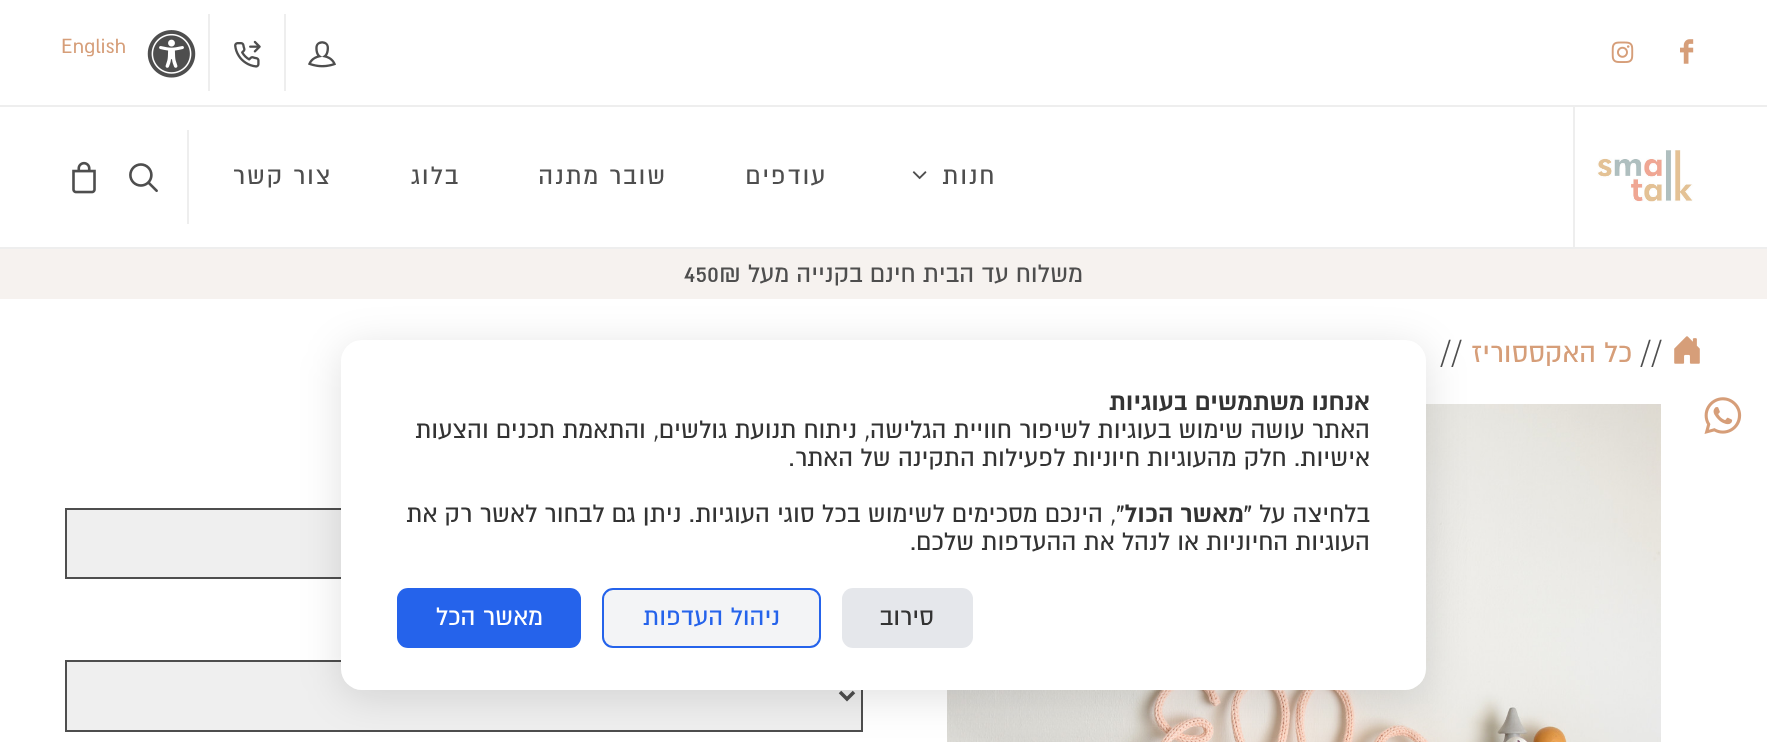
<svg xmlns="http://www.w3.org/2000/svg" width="1767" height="742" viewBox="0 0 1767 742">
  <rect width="100%" height="100%" fill="rgb(255,255,255)"/>
  <rect x="0" y="105" width="1767" height="2" fill="rgb(238,238,238)"/>
  <image x="1680" y="39" width="14" height="25" href="pic1.png"/>
  <image x="1611" y="41" width="23" height="22" href="pic2.png"/>
  <image x="308" y="41" width="28" height="27" href="pic3.png"/>
  <rect x="284" y="14" width="2" height="77" fill="rgb(238,238,238)"/>
  <image x="234" y="40" width="27" height="28" href="pic4.png"/>
  <rect x="208" y="14" width="2" height="77" fill="rgb(238,238,238)"/>
  <image x="147" y="30" width="49" height="48" href="pic5.png"/>
  <text x="61" y="53" font-family="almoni" font-size="23" fill="rgb(214,158,121)">English</text>
  <rect x="0" y="247" width="1767" height="2" fill="rgb(238,238,238)"/>
  <rect x="1573" y="107" width="2" height="140" fill="rgb(238,238,238)"/>
  <image x="1597" y="150" width="96" height="52" href="pic6.png"/>
  <rect x="187" y="130" width="2" height="94" fill="rgb(238,238,238)"/>
  <text x="996" y="184" font-family="almoni" font-size="28" letter-spacing="1.75" direction="rtl" fill="rgb(78,78,78)">חנות</text>
  <image x="912" y="171" width="15" height="9" href="pic7.png"/>
  <g font-family="almoni" font-size="28" letter-spacing="1.75" direction="rtl" fill="rgb(78,78,78)">
    <text x="827" y="184">עודפים</text>
    <text x="667" y="184">שובר מתנה</text>
    <text x="460" y="184">בלוג</text>
    <text x="332" y="184">צור קשר</text>
  </g>
  <image x="129" y="163" width="29" height="30" href="pic8.png"/>
  <image x="72" y="161" width="24" height="33" href="pic9.png"/>
  <image x="1704" y="397" width="38" height="37" href="pic10.png"/>
  <rect x="0" y="249" width="1767" height="50" fill="rgb(246,242,239)"/>
  <text x="1083" y="282" font-family="almoni" font-size="28" direction="rtl" fill="rgb(78,78,78)">משלוח עד הבית חינם בקנייה מעל</text>
  <text x="684" y="282" font-family="almoni" font-size="28" fill="rgb(78,78,78)">450₪</text>
  <image x="1674" y="336" width="26" height="28" href="pic11.png"/>
  <text x="1640" y="362" font-family="Assistant" font-size="31.5" fill="rgb(78,78,78)">//</text>
  <text x="1632" y="362" font-family="almoni" font-size="31.5" direction="rtl" fill="rgb(214,158,121)">כל האקססוריז</text>
  <text x="1440" y="362" font-family="Assistant" font-size="31.5" fill="rgb(78,78,78)">//</text>
  <image x="947" y="404" width="714" height="338" href="pic12.png"/>
  <rect x="67" y="510" width="274" height="67" fill="rgb(239,239,239)"/>
  <rect x="66" y="509" width="796" height="69" fill="none" stroke="rgb(78,78,78)" stroke-width="2"/>
  <rect x="66" y="661" width="796" height="70" fill="rgb(239,239,239)" stroke="rgb(78,78,78)" stroke-width="2"/>
  <path d="M840 692L847 699L854 692" fill="none" stroke="rgb(78,78,78)" stroke-width="3.5"/>
  <rect x="341" y="347" width="1085" height="350" rx="21" fill="rgba(0,0,0,0.12)" filter="blur(21px)"/>
  <rect x="341" y="340" width="1085" height="350" rx="21" fill="rgb(255,255,255)"/>
  <text x="1370" y="410" font-family="almoni" font-size="28" font-weight="bold" direction="rtl" fill="rgb(51,51,51)">אנחנו משתמשים בעוגיות</text>
  <g font-family="almoni" font-size="28" direction="rtl" fill="rgb(51,51,51)">
    <text>
      <tspan x="1370" y="438">האתר עושה שימוש בעוגיות לשיפור חוויית הגלישה, ניתוח תנועת גולשים, והתאמת תכנים והצעות</tspan>
      <tspan x="1370" y="466">אישיות. חלק מהעוגיות חיוניות לפעילות התקינה של האתר.</tspan>
    </text>
    <text x="1370" y="522">בלחיצה על</text>
  </g>
  <text x="1252" y="522" font-family="almoni" font-size="28" font-weight="bold" direction="rtl" fill="rgb(51,51,51)">“מאשר הכול”</text>
  <g font-family="almoni" font-size="28" direction="rtl" fill="rgb(51,51,51)">
    <text x="1116" y="522">, הינכם מסכימים לשימוש בכל סוגי העוגיות. ניתן גם לבחור לאשר רק את</text>
    <text x="1370" y="550">העוגיות החיוניות או לנהל את ההעדפות שלכם.</text>
  </g>
  <rect x="842" y="588" width="131" height="60" rx="11" fill="rgb(229,231,235)"/>
  <text x="934" y="625" font-family="almoni" font-size="28" direction="rtl" fill="rgb(51,51,51)">סירוב</text>
  <rect x="603" y="589" width="217" height="58" rx="10" fill="rgb(243,244,246)" stroke="rgb(37,99,235)" stroke-width="2"/>
  <text x="780" y="625" font-family="almoni" font-size="28" direction="rtl" fill="rgb(37,99,235)">ניהול העדפות</text>
  <rect x="397" y="588" width="184" height="60" rx="11" fill="rgb(37,99,235)"/>
  <text x="543" y="625" font-family="almoni" font-size="28" direction="rtl" fill="rgb(255,255,255)">מאשר הכל</text>
</svg>
